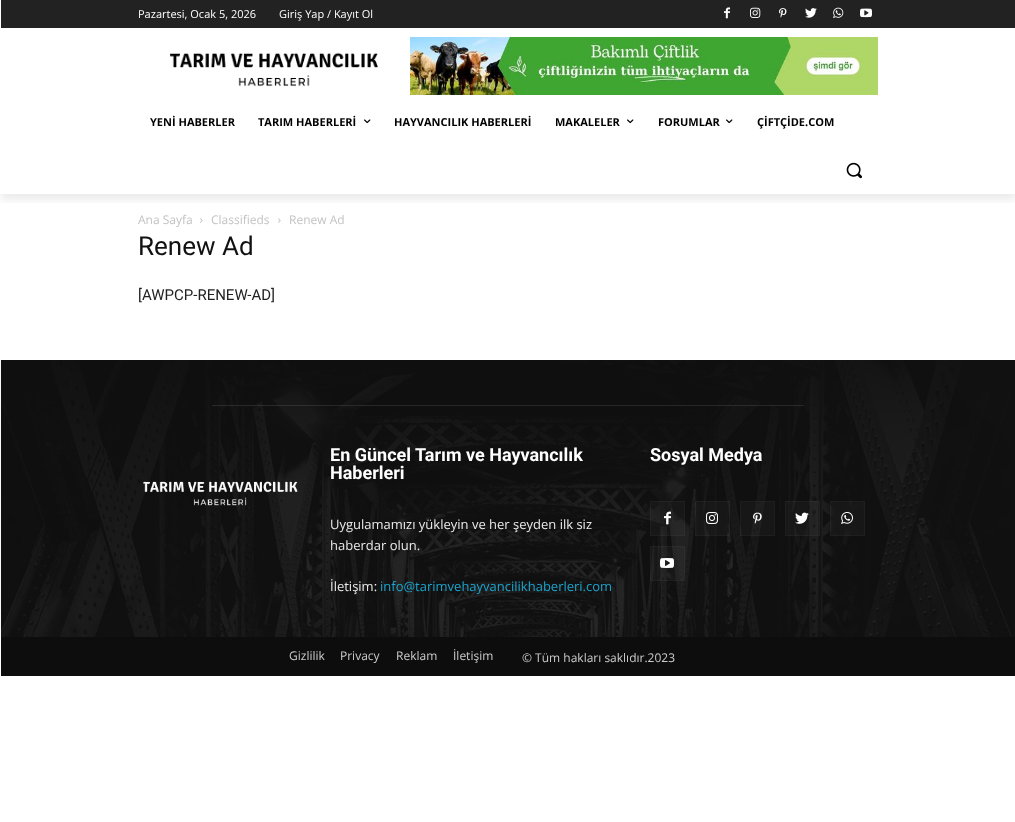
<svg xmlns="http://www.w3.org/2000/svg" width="1015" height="822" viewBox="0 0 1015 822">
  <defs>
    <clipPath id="clip1"><rect x="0" y="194" width="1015" height="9"/></clipPath>
  </defs>
  <rect width="100%" height="100%" fill="rgb(255,255,255)"/>
  <rect x="1" y="0" width="1014" height="28" fill="rgb(34,34,34)"/>
  <image x="724" y="7" width="6" height="12" href="pic1.png"/>
  <image x="750" y="7" width="11" height="11" href="pic2.png"/>
  <image x="779" y="8" width="8" height="10" href="pic3.png"/>
  <image x="805" y="8" width="12" height="10" href="pic4.png"/>
  <image x="833" y="7" width="11" height="11" href="pic5.png"/>
  <image x="860" y="8" width="12" height="10" href="pic6.png"/>
  <image x="170" y="52" width="208" height="35" href="pic7.png"/>
  <image x="410" y="37" width="468" height="58" href="pic8.png"/>
  <g clip-path="url(#clip1)">
    <rect x="1" y="6" width="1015" height="194" fill="rgba(0,0,0,0.08)" filter="blur(4px)"/>
  </g>
  <g font-family="Open Sans" font-size="11" fill="rgb(255,255,255)">
    <text x="138" y="18">Pazartesi, Ocak 5, 2026</text>
    <text x="279" y="18">Giriş Yap / Kayıt Ol</text>
  </g>
  <g font-family="Open Sans" font-size="11" font-weight="bold" fill="rgb(0,0,0)">
    <text x="150" y="126">YENİ HABERLER</text>
    <text x="258" y="126">TARIM HABERLERİ</text>
  </g>
  <image x="364" y="119" width="7" height="5" href="pic9.png"/>
  <g font-family="Open Sans" font-size="11" font-weight="bold" fill="rgb(0,0,0)">
    <text x="394" y="126">HAYVANCILIK HABERLERİ</text>
    <text x="555" y="126">MAKALELER</text>
  </g>
  <image x="627" y="119" width="7" height="5" href="pic9.png"/>
  <text x="658" y="126" font-family="Open Sans" font-size="11" font-weight="bold" fill="rgb(0,0,0)">FORUMLAR</text>
  <image x="726" y="119" width="7" height="5" href="pic9.png"/>
  <text x="757" y="126" font-family="Open Sans" font-size="11" font-weight="bold" fill="rgb(0,0,0)">ÇİFTÇİDE.COM</text>
  <image x="846" y="162" width="16" height="17" href="pic10.png"/>
  <text x="138" y="224" font-family="Open Sans" font-size="12" fill="rgb(195,195,195)">Ana Sayfa</text>
  <image x="200" y="218" width="3" height="5" href="pic11.png"/>
  <text x="211" y="224" font-family="Open Sans" font-size="12" fill="rgb(195,195,195)">Classifieds</text>
  <image x="278" y="218" width="3" height="5" href="pic11.png"/>
  <text x="289" y="224" font-family="Open Sans" font-size="12" fill="rgb(195,195,195)">Renew Ad</text>
  <text x="138" y="255" font-family="Roboto" font-size="26" fill="rgb(17,17,17)">Renew Ad</text>
  <text x="138" y="300" font-family="Roboto" font-size="15" fill="rgb(34,34,34)">[AWPCP-RENEW-AD]</text>
  <rect x="1" y="360" width="1014" height="277" fill="rgb(17,17,17)"/>
  <image x="0" y="360" width="1012" height="277" href="pic12.png"/>
  <rect x="212" y="405" width="592" height="1" fill="rgba(255,255,255,0.1)"/>
  <g font-family="Roboto" font-size="18" font-weight="bold" fill="rgb(255,255,255)">
    <text>
      <tspan x="330" y="461">En Güncel Tarım ve Hayvancılık</tspan>
      <tspan x="330" y="479">Haberleri</tspan>
    </text>
  </g>
  <g font-family="Open Sans" font-size="13" fill="rgb(234,234,234)">
    <text>
      <tspan x="330" y="529">Uygulamamızı yükleyin ve her şeyden ilk siz</tspan>
      <tspan x="330" y="550">haberdar olun.</tspan>
    </text>
    <text x="330" y="591">İletişim:</text>
  </g>
  <text x="380" y="591" font-family="Open Sans" font-size="13" fill="rgb(26,164,206)">info@tarimvehayvancilikhaberleri.com</text>
  <text x="650" y="461" font-family="Roboto" font-size="18" font-weight="bold" fill="rgb(255,255,255)">Sosyal Medya</text>
  <rect x="650" y="501" width="35" height="35" fill="rgba(255,255,255,0.03)"/>
  <rect x="650.5" y="501.5" width="34" height="34" fill="none" stroke="rgba(255,255,255,0.03)"/>
  <image x="664" y="511" width="7" height="14" href="pic13.png"/>
  <rect x="695" y="501" width="35" height="35" fill="rgba(255,255,255,0.03)"/>
  <rect x="695.5" y="501.5" width="34" height="34" fill="none" stroke="rgba(255,255,255,0.03)"/>
  <image x="706" y="512" width="12" height="12" href="pic14.png"/>
  <rect x="740" y="501" width="35" height="35" fill="rgba(255,255,255,0.03)"/>
  <rect x="740.5" y="501.5" width="34" height="34" fill="none" stroke="rgba(255,255,255,0.03)"/>
  <image x="753" y="512" width="9" height="12" href="pic15.png"/>
  <rect x="785" y="501" width="35" height="35" fill="rgba(255,255,255,0.03)"/>
  <rect x="785.5" y="501.5" width="34" height="34" fill="none" stroke="rgba(255,255,255,0.03)"/>
  <image x="795" y="512" width="14" height="12" href="pic16.png"/>
  <rect x="830" y="501" width="35" height="35" fill="rgba(255,255,255,0.03)"/>
  <rect x="830.5" y="501.5" width="34" height="34" fill="none" stroke="rgba(255,255,255,0.03)"/>
  <image x="841" y="512" width="12" height="12" href="pic17.png"/>
  <rect x="650" y="546" width="35" height="35" fill="rgba(255,255,255,0.03)"/>
  <rect x="650.5" y="546.5" width="34" height="34" fill="none" stroke="rgba(255,255,255,0.03)"/>
  <image x="660" y="558" width="14" height="10" href="pic18.png"/>
  <image x="143" y="481" width="155" height="25" href="pic19.png"/>
  <rect x="1" y="637" width="1014" height="39" fill="rgb(13,13,13)"/>
  <g font-family="Open Sans" font-size="12" fill="rgb(204,204,204)">
    <text x="289" y="660">Gizlilik</text>
    <text x="340" y="660">Privacy</text>
    <text x="396" y="660">Reklam</text>
    <text x="453" y="660">İletişim</text>
    <text x="522" y="662">© Tüm hakları saklıdır.2023</text>
  </g>
</svg>
